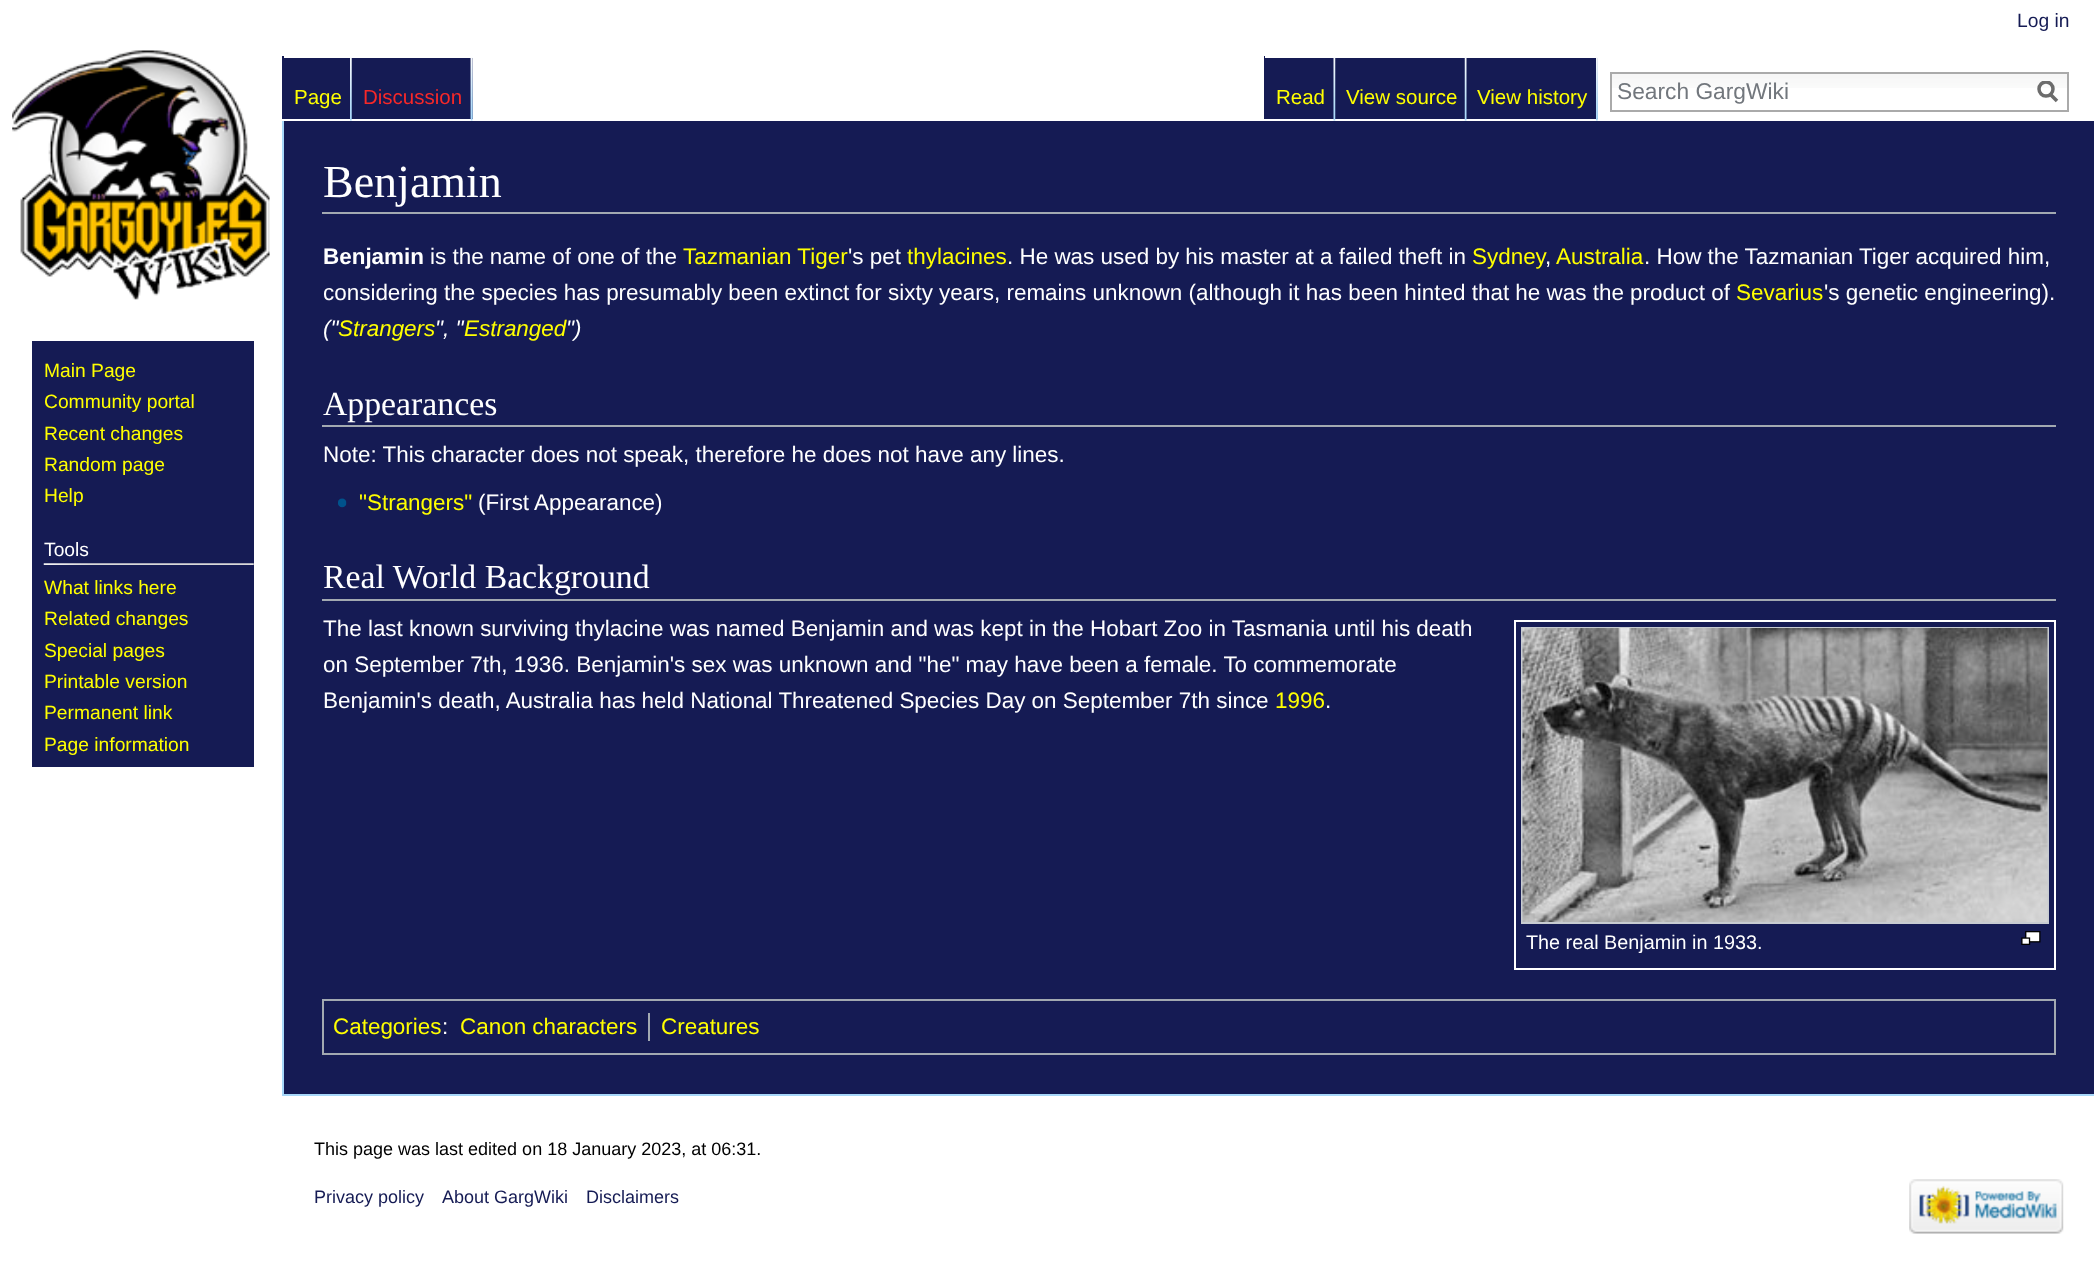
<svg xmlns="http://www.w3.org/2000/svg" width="2094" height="1266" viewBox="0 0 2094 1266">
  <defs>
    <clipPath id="clip1"><rect x="2037" y="81" width="21" height="22"/></clipPath>
  </defs>
  <rect width="100%" height="100%" fill="rgb(255,255,255)"/>
  <rect x="282" y="1094" width="1812" height="2" fill="rgb(167,215,249)"/>
  <rect x="282" y="117" width="2" height="979" fill="rgb(167,215,249)"/>
  <rect x="282" y="117" width="2" height="4" fill="rgb(255,255,255)"/>
  <text x="2017" y="27" font-family="Liberation Sans" font-size="19.25" fill="rgb(21,27,84)">Log in</text>
  <rect x="282" y="56" width="191" height="63" fill="rgb(21,27,84)"/>
  <image x="470" y="58" width="3" height="61" href="pic1.png"/>
  <rect x="284" y="56" width="189" height="2" fill="rgb(255,255,255)"/>
  <image x="350" y="57" width="2" height="64" href="pic2.png"/>
  <text x="294" y="104" font-family="Liberation Sans" font-size="20.5" fill="rgb(255,255,0)">Page</text>
  <image x="470" y="57" width="3" height="64" href="pic3.png"/>
  <text x="363" y="104" font-family="Liberation Sans" font-size="20.5" fill="rgb(247,40,40)">Discussion</text>
  <rect x="1264" y="56" width="334" height="63" fill="rgb(21,27,84)"/>
  <image x="1597" y="58" width="1" height="61" href="pic4.png"/>
  <rect x="1265" y="56" width="70" height="2" fill="rgb(255,255,255)"/>
  <image x="1333" y="57" width="3" height="64" href="pic5.png"/>
  <text x="1276" y="104" font-family="Liberation Sans" font-size="20.5" fill="rgb(255,255,0)">Read</text>
  <rect x="1335" y="56" width="263" height="2" fill="rgb(255,255,255)"/>
  <image x="1464" y="57" width="3" height="64" href="pic6.png"/>
  <text x="1346" y="104" font-family="Liberation Sans" font-size="20.5" fill="rgb(255,255,0)">View source</text>
  <image x="1596" y="57" width="2" height="64" href="pic7.png"/>
  <text x="1477" y="104" font-family="Liberation Sans" font-size="20.5" fill="rgb(255,255,0)">View history</text>
  <image x="1612" y="74" width="455" height="14" href="pic8.png"/>
  <rect x="1611" y="73" width="457" height="38" fill="none" stroke="rgb(170,170,170)" stroke-width="2"/>
  <text x="1617" y="99" font-family="Liberation Sans" font-size="22.75" fill="rgb(114,119,125)">Search GargWiki</text>
  <path d="M2057 101L2050 94" fill="none" stroke="rgb(108,108,108)" stroke-width="3.5"/>
  <g clip-path="url(#clip1)">
    <circle cx="2046" cy="89" r="7" fill="none" stroke="rgb(108,108,108)" stroke-width="3.5"/>
  </g>
  <image x="12" y="50" width="258" height="250" href="pic9.png"/>
  <rect x="32" y="341" width="222" height="426" fill="rgb(21,27,84)"/>
  <g font-family="Liberation Sans" font-size="19.25" fill="rgb(255,255,0)">
    <text>
      <tspan x="44" y="377">Main Page</tspan>
      <tspan x="44" y="408">Community portal</tspan>
      <tspan x="44" y="440">Recent changes</tspan>
      <tspan x="44" y="471">Random page</tspan>
      <tspan x="44" y="502">Help</tspan>
    </text>
  </g>
  <text x="44" y="556" font-family="Liberation Sans" font-size="19.25" fill="rgb(255,255,255)">Tools</text>
  <image x="43" y="563" width="211" height="2" href="pic10.png"/>
  <g font-family="Liberation Sans" font-size="19.25" fill="rgb(255,255,0)">
    <text>
      <tspan x="44" y="594">What links here</tspan>
      <tspan x="44" y="625">Related changes</tspan>
      <tspan x="44" y="657">Special pages</tspan>
      <tspan x="44" y="688">Printable version</tspan>
      <tspan x="44" y="719">Permanent link</tspan>
      <tspan x="44" y="751">Page information</tspan>
    </text>
  </g>
  <rect x="284" y="121" width="1810" height="973" fill="rgb(21,27,84)"/>
  <rect x="322" y="212" width="1734" height="2" fill="rgb(162,169,177)"/>
  <text x="323" y="197" font-family="Liberation Serif" font-size="46" fill="rgb(255,255,255)">Benjamin</text>
  <text x="323" y="264" font-family="Liberation Sans" font-size="22.45" font-weight="bold" fill="rgb(255,255,255)">Benjamin</text>
  <text x="430" y="264" font-family="Liberation Sans" font-size="22.45" fill="rgb(255,255,255)">is the name of one of the</text>
  <text x="683" y="264" font-family="Liberation Sans" font-size="22.45" fill="rgb(255,255,0)">Tazmanian Tiger</text>
  <text x="848" y="264" font-family="Liberation Sans" font-size="22.45" fill="rgb(255,255,255)">'s pet</text>
  <text x="907" y="264" font-family="Liberation Sans" font-size="22.45" fill="rgb(255,255,0)">thylacines</text>
  <text x="1007" y="264" font-family="Liberation Sans" font-size="22.45" fill="rgb(255,255,255)">. He was used by his master at a failed theft in</text>
  <text x="1472" y="264" font-family="Liberation Sans" font-size="22.45" fill="rgb(255,255,0)">Sydney</text>
  <text x="1545" y="264" font-family="Liberation Sans" font-size="22.45" fill="rgb(255,255,255)">,</text>
  <text x="1556" y="264" font-family="Liberation Sans" font-size="22.45" fill="rgb(255,255,0)">Australia</text>
  <g font-family="Liberation Sans" font-size="22.45" fill="rgb(255,255,255)">
    <text x="1644" y="264">. How the Tazmanian Tiger acquired him,</text>
    <text x="323" y="300">considering the species has presumably been extinct for sixty years, remains unknown (although it has been hinted that he was the product of</text>
  </g>
  <text x="1736" y="300" font-family="Liberation Sans" font-size="22.45" fill="rgb(255,255,0)">Sevarius</text>
  <text x="1824" y="300" font-family="Liberation Sans" font-size="22.45" fill="rgb(255,255,255)">'s genetic engineering).</text>
  <text x="323" y="336" font-family="Liberation Sans" font-size="22.45" font-style="italic" fill="rgb(255,255,255)">("</text>
  <text x="338" y="336" font-family="Liberation Sans" font-size="22.45" font-style="italic" fill="rgb(255,255,0)">Strangers</text>
  <text x="435" y="336" font-family="Liberation Sans" font-size="22.45" font-style="italic" fill="rgb(255,255,255)">", "</text>
  <text x="464" y="336" font-family="Liberation Sans" font-size="22.45" font-style="italic" fill="rgb(255,255,0)">Estranged</text>
  <text x="566" y="336" font-family="Liberation Sans" font-size="22.45" font-style="italic" fill="rgb(255,255,255)">")</text>
  <rect x="322" y="425" width="1734" height="2" fill="rgb(162,169,177)"/>
  <text x="323" y="415" font-family="Liberation Serif" font-size="33.75" fill="rgb(255,255,255)">Appearances</text>
  <text x="323" y="462" font-family="Liberation Sans" font-size="22.45" fill="rgb(255,255,255)">Note: This character does not speak, therefore he does not have any lines.</text>
  <image x="338" y="498" width="9" height="10" href="pic11.png"/>
  <text x="359" y="510" font-family="Liberation Sans" font-size="22.45" fill="rgb(255,255,0)">"Strangers"</text>
  <text x="478" y="510" font-family="Liberation Sans" font-size="22.45" fill="rgb(255,255,255)">(First Appearance)</text>
  <rect x="322" y="599" width="1734" height="2" fill="rgb(162,169,177)"/>
  <text x="323" y="588" font-family="Liberation Serif" font-size="33.75" fill="rgb(255,255,255)">Real World Background</text>
  <g font-family="Liberation Sans" font-size="22.45" fill="rgb(255,255,255)">
    <text>
      <tspan x="323" y="636">The last known surviving thylacine was named Benjamin and was kept in the Hobart Zoo in Tasmania until his death</tspan>
      <tspan x="323" y="672">on September 7th, 1936. Benjamin's sex was unknown and "he" may have been a female. To commemorate</tspan>
      <tspan x="323" y="708">Benjamin's death, Australia has held National Threatened Species Day on September 7th since</tspan>
    </text>
  </g>
  <text x="1275" y="708" font-family="Liberation Sans" font-size="22.45" fill="rgb(255,255,0)">1996</text>
  <text x="1325" y="708" font-family="Liberation Sans" font-size="22.45" fill="rgb(255,255,255)">.</text>
  <rect x="1515" y="621" width="540" height="348" fill="none" stroke="rgb(255,255,255)" stroke-width="2"/>
  <rect x="1522" y="628" width="526" height="295" fill="none" stroke="rgb(200,204,209)" stroke-width="2"/>
  <image x="1522" y="628" width="526" height="294" href="pic12.png"/>
  <text x="1526" y="949" font-family="Liberation Sans" font-size="19.8" fill="rgb(255,255,255)">The real Benjamin in 1933.</text>
  <image x="2021" y="931" width="20" height="14" href="pic13.png"/>
  <rect x="323" y="1000" width="1732" height="54" fill="none" stroke="rgb(162,169,177)" stroke-width="2"/>
  <text x="333" y="1034" font-family="Liberation Sans" font-size="22.45" fill="rgb(255,255,0)">Categories</text>
  <text x="442" y="1034" font-family="Liberation Sans" font-size="22.45" fill="rgb(255,255,255)">:</text>
  <text x="460" y="1034" font-family="Liberation Sans" font-size="22.45" fill="rgb(255,255,0)">Canon characters</text>
  <rect x="648" y="1013" width="2" height="28" fill="rgb(162,169,177)"/>
  <text x="661" y="1034" font-family="Liberation Sans" font-size="22.45" fill="rgb(255,255,0)">Creatures</text>
  <text x="314" y="1155" font-family="Liberation Sans" font-size="18" fill="rgb(0,0,0)">This page was last edited on 18 January 2023, at 06:31.</text>
  <g font-family="Liberation Sans" font-size="18" fill="rgb(21,27,84)">
    <text x="314" y="1203">Privacy policy</text>
    <text x="442" y="1203">About GargWiki</text>
    <text x="586" y="1203">Disclaimers</text>
  </g>
  <image x="1909" y="1179" width="155" height="55" href="pic14.png"/>
</svg>
